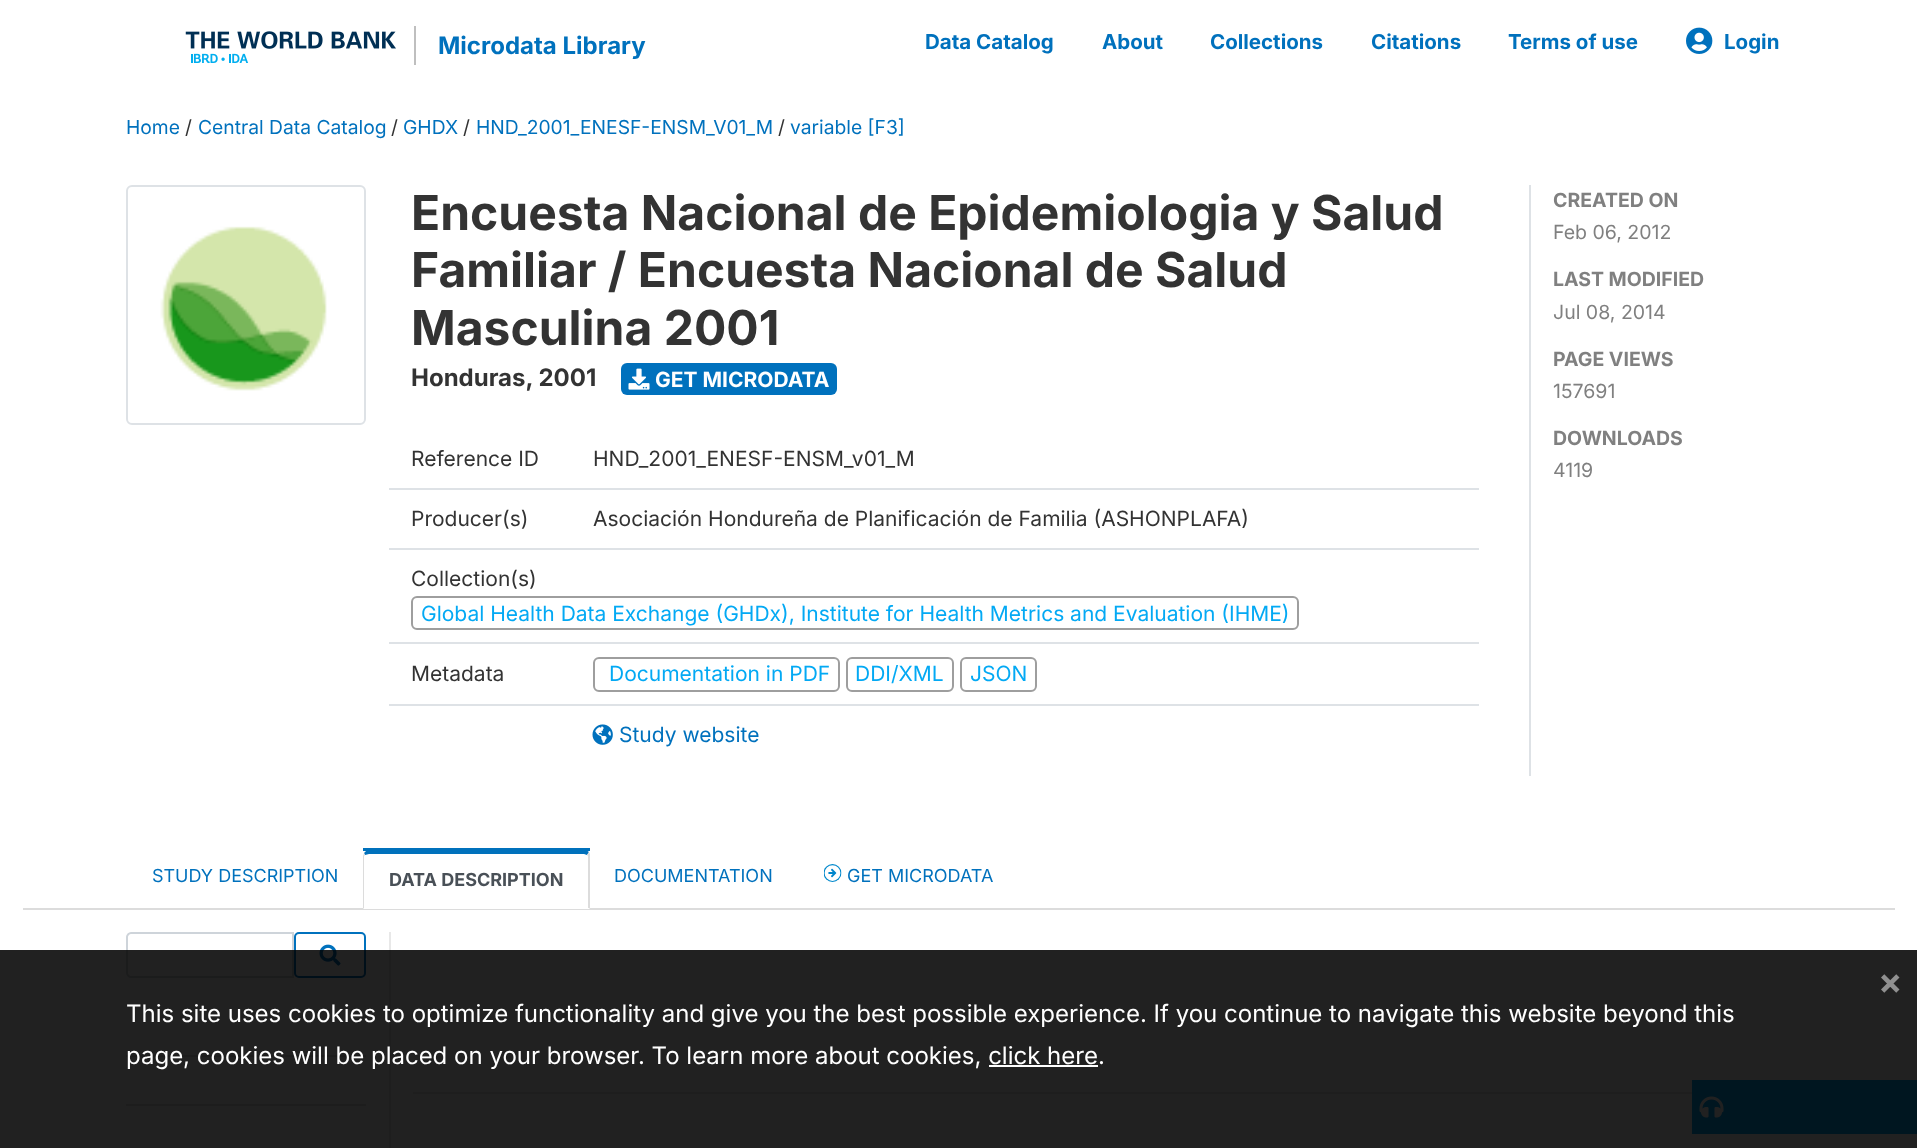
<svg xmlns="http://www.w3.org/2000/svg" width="1917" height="1148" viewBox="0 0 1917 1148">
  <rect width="100%" height="100%" fill="rgb(255,255,255)"/>
  <image x="185" y="31" width="211" height="33" href="pic1.png"/>
  <rect x="414" y="26" width="2" height="39" fill="rgb(191,191,191)"/>
  <text x="438" y="54" font-family="Inter" font-size="24" font-weight="bold" fill="rgb(0,113,189)">Microdata Library</text>
  <g font-family="Inter" font-size="20.5" font-weight="bold" fill="rgb(0,113,189)">
    <text x="925" y="49">Data Catalog</text>
    <text x="1102" y="49">About</text>
    <text x="1210" y="49">Collections</text>
    <text x="1371" y="49">Citations</text>
    <text x="1508" y="49">Terms of use</text>
  </g>
  <image x="1686" y="27" width="27" height="27" href="pic2.png"/>
  <text x="1724" y="49" font-family="Inter" font-size="20.5" font-weight="bold" fill="rgb(0,113,189)">Login</text>
  <text x="126" y="134" font-family="Inter" font-size="19.25" fill="rgb(0,113,189)">Home</text>
  <text x="185" y="134" font-family="Inter" font-size="19.25" fill="rgb(51,51,51)">/</text>
  <text x="198" y="134" font-family="Inter" font-size="19.25" fill="rgb(0,113,189)">Central Data Catalog</text>
  <text x="391" y="134" font-family="Inter" font-size="19.25" fill="rgb(51,51,51)">/</text>
  <text x="403" y="134" font-family="Inter" font-size="19.25" fill="rgb(0,113,189)">GHDX</text>
  <text x="463" y="134" font-family="Inter" font-size="19.25" fill="rgb(51,51,51)">/</text>
  <text x="476" y="134" font-family="Inter" font-size="19.25" fill="rgb(0,113,189)">HND_2001_ENESF-ENSM_V01_M</text>
  <text x="778" y="134" font-family="Inter" font-size="19.25" fill="rgb(51,51,51)">/</text>
  <text x="790" y="134" font-family="Inter" font-size="19.25" fill="rgb(0,113,189)">variable [F3]</text>
  <rect x="23" y="908" width="1872" height="2" fill="rgb(220,220,220)"/>
  <rect x="127" y="186" width="238" height="238" rx="5" fill="none" stroke="rgb(222,226,230)" stroke-width="2"/>
  <image x="160" y="226" width="167" height="165" href="pic3.png"/>
  <g font-family="Inter" font-size="48" font-weight="bold" fill="rgb(51,51,51)">
    <text>
      <tspan x="411" y="230">Encuesta Nacional de Epidemiologia y Salud</tspan>
      <tspan x="411" y="287">Familiar / Encuesta Nacional de Salud</tspan>
      <tspan x="411" y="345">Masculina 2001</tspan>
    </text>
  </g>
  <text x="411" y="386" font-family="Inter" font-size="24" font-weight="bold" fill="rgb(51,51,51)">Honduras, 2001</text>
  <rect x="621" y="363" width="216" height="32" rx="6" fill="rgb(0,113,189)"/>
  <image x="628" y="368" width="22" height="22" href="pic4.png"/>
  <text x="655" y="387" font-family="Inter" font-size="21" font-weight="bold" fill="rgb(255,255,255)">GET MICRODATA</text>
  <rect x="389" y="488" width="1090" height="2" fill="rgb(222,226,230)"/>
  <g font-family="Inter" font-size="21" fill="rgb(51,51,51)">
    <text x="411" y="466">Reference ID</text>
    <text x="593" y="466">HND_2001_ENESF-ENSM_v01_M</text>
  </g>
  <rect x="389" y="548" width="1090" height="2" fill="rgb(222,226,230)"/>
  <g font-family="Inter" font-size="21" fill="rgb(51,51,51)">
    <text x="411" y="526">Producer(s)</text>
    <text x="593" y="526">Asociación Hondureña de Planificación de Familia (ASHONPLAFA)</text>
  </g>
  <rect x="389" y="642" width="1090" height="2" fill="rgb(222,226,230)"/>
  <text x="411" y="586" font-family="Inter" font-size="21" fill="rgb(51,51,51)">Collection(s)</text>
  <rect x="412" y="597" width="886" height="32" rx="5" fill="none" stroke="rgb(158,158,158)" stroke-width="2"/>
  <text x="421" y="621" font-family="Inter" font-size="21" fill="rgb(3,169,244)">Global Health Data Exchange (GHDx), Institute for Health Metrics and Evaluation (IHME)</text>
  <rect x="389" y="704" width="1090" height="2" fill="rgb(222,226,230)"/>
  <text x="411" y="681" font-family="Inter" font-size="21" fill="rgb(51,51,51)">Metadata</text>
  <rect x="594" y="658" width="245" height="33" rx="5" fill="none" stroke="rgb(158,158,158)" stroke-width="2"/>
  <text x="609" y="681" font-family="Inter" font-size="21" fill="rgb(3,169,244)">Documentation in PDF</text>
  <rect x="847" y="658" width="106" height="33" rx="5" fill="none" stroke="rgb(158,158,158)" stroke-width="2"/>
  <text x="855" y="681" font-family="Inter" font-size="21" fill="rgb(3,169,244)">DDI/XML</text>
  <rect x="961" y="658" width="75" height="33" rx="5" fill="none" stroke="rgb(158,158,158)" stroke-width="2"/>
  <text x="970" y="681" font-family="Inter" font-size="21" fill="rgb(3,169,244)">JSON</text>
  <image x="592" y="724" width="21" height="21" href="pic5.png"/>
  <text x="619" y="742" font-family="Inter" font-size="21" fill="rgb(0,113,189)">Study website</text>
  <rect x="1529" y="185" width="2" height="591" fill="rgb(222,226,230)"/>
  <text x="1553" y="207" font-family="Inter" font-size="19.5" font-weight="bold" fill="rgb(128,128,128)">CREATED ON</text>
  <text x="1553" y="239" font-family="Inter" font-size="19.5" fill="rgb(128,128,128)">Feb 06, 2012</text>
  <text x="1553" y="286" font-family="Inter" font-size="19.5" font-weight="bold" fill="rgb(128,128,128)">LAST MODIFIED</text>
  <text x="1553" y="319" font-family="Inter" font-size="19.5" fill="rgb(128,128,128)">Jul 08, 2014</text>
  <text x="1553" y="366" font-family="Inter" font-size="19.5" font-weight="bold" fill="rgb(128,128,128)">PAGE VIEWS</text>
  <text x="1553" y="398" font-family="Inter" font-size="19.5" fill="rgb(128,128,128)">157691</text>
  <text x="1553" y="445" font-family="Inter" font-size="19.5" font-weight="bold" fill="rgb(128,128,128)">DOWNLOADS</text>
  <text x="1553" y="477" font-family="Inter" font-size="19.5" fill="rgb(128,128,128)">4119</text>
  <text x="152" y="882" font-family="Inter" font-size="18" fill="rgb(0,113,189)">STUDY DESCRIPTION</text>
  <rect x="363" y="908" width="227" height="1" fill="rgb(255,255,255)"/>
  <rect x="363" y="848" width="227" height="3" fill="rgb(0,113,188)"/>
  <path d="M369 854L365 855L364 853L367 850H586L589 852L587 855L584 854Z" fill="rgb(0,113,188)"/>
  <path d="M590 854V909L588 908V856L587 855L589 852Z" fill="rgb(220,220,220)"/>
  <path d="M590 909L588 908H364L363 909Z" fill="rgb(255,255,255)"/>
  <path d="M363 909L364 908V856L365 855L364 853L363 856Z" fill="rgb(220,220,220)"/>
  <text x="389" y="886" font-family="Inter" font-size="18" font-weight="bold" fill="rgb(73,80,87)">DATA DESCRIPTION</text>
  <text x="614" y="882" font-family="Inter" font-size="18" fill="rgb(0,113,189)">DOCUMENTATION</text>
  <image x="824" y="864" width="18" height="18" href="pic6.png"/>
  <text x="847" y="882" font-family="Inter" font-size="18" fill="rgb(0,113,189)">GET MICRODATA</text>
  <path d="M131 933H293V977H131C129 977 127 975 127 973V937C127 935 129 933 131 933Z" fill="none" stroke="rgb(206,212,218)" stroke-width="2"/>
  <rect x="295" y="933" width="70" height="44" rx="4" fill="none" stroke="rgb(0,113,189)" stroke-width="2"/>
  <image x="319" y="944" width="22" height="22" href="pic7.png"/>
  <rect x="126" y="1055" width="240" height="2" fill="rgb(221,221,221)"/>
  <rect x="126" y="1104" width="240" height="2" fill="rgb(221,221,221)"/>
  <rect x="389" y="932" width="2" height="216" fill="rgb(232,232,232)"/>
  <rect x="413" y="1092" width="1279" height="2" fill="rgb(232,232,232)"/>
  <rect x="1692" y="1080" width="225" height="54" fill="rgb(3,169,244)"/>
  <image x="1699" y="1096" width="25" height="22" href="pic8.png"/>
  <rect x="0" y="950" width="1917" height="198" fill="rgba(0,0,0,0.87)"/>
  <text x="1878" y="994" font-family="Inter" font-size="36" font-weight="bold" fill="rgb(144,144,144)">×</text>
  <g font-family="Inter" font-size="24" fill="rgb(255,255,255)">
    <text>
      <tspan x="126" y="1022">This site uses cookies to optimize functionality and give you the best possible experience. If you continue to navigate this website beyond this</tspan>
      <tspan x="126" y="1064">page, cookies will be placed on your browser. To learn more about cookies, click here.</tspan>
    </text>
  </g>
  <rect x="989" y="1065" width="109" height="2" fill="rgb(255,255,255)"/>
</svg>
